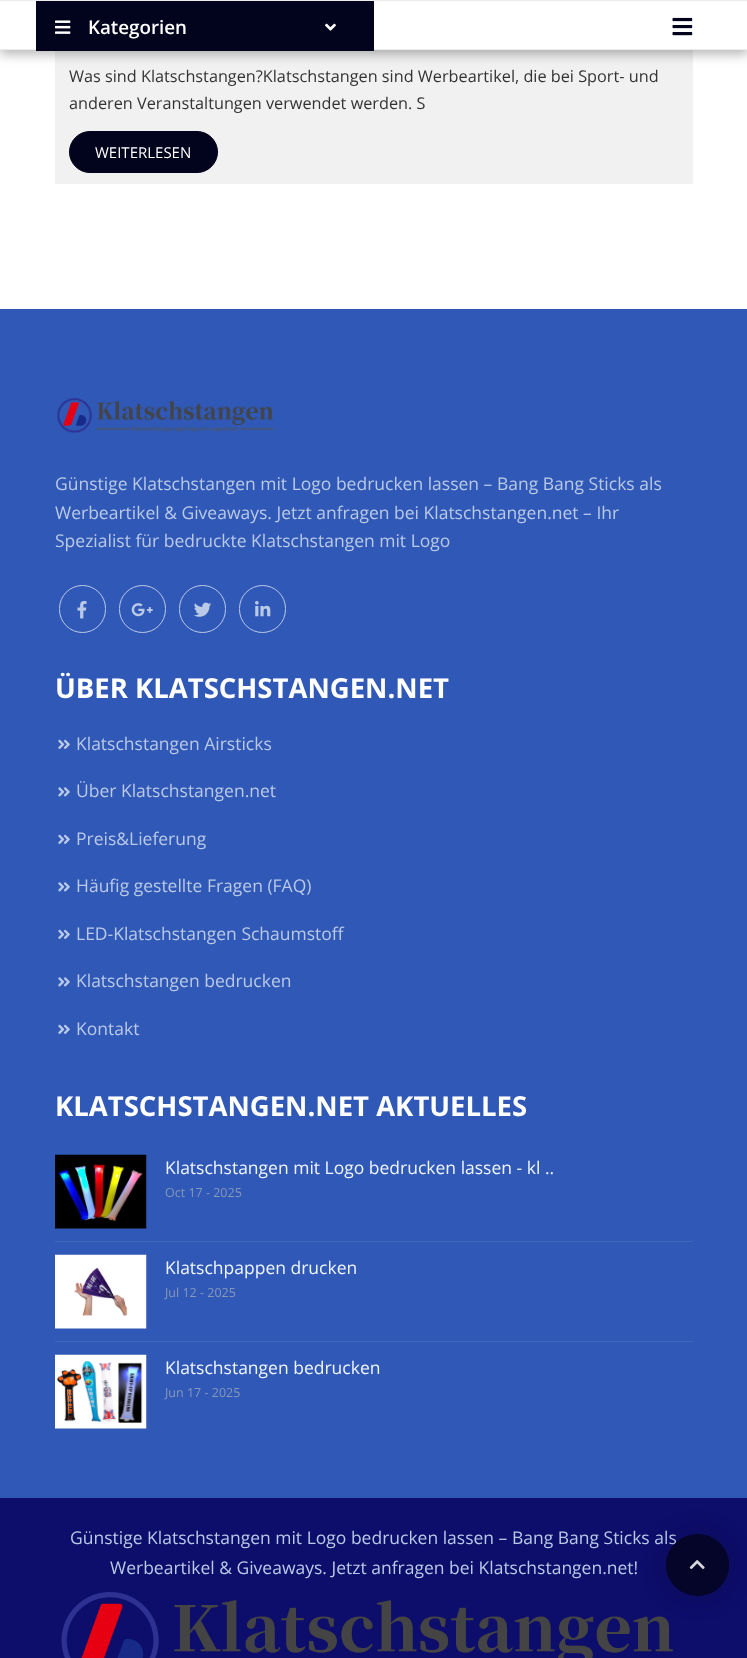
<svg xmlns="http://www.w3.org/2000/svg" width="747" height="1658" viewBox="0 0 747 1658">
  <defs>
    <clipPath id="clip1"><path d="M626 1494H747V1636H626ZM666 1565C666 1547.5 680 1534 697.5 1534C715 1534 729 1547.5 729 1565C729 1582.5 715 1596 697.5 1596C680 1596 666 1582.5 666 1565Z" clip-rule="evenodd"/></clipPath>
  </defs>
  <rect width="100%" height="100%" fill="rgb(255,255,255)"/>
  <rect x="55" y="50" width="638" height="134" fill="rgb(241,241,241)"/>
  <rect x="0" y="4" width="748" height="50" fill="rgba(0,0,0,0.3)" filter="blur(6px)"/>
  <rect x="0" y="1" width="747" height="48" fill="rgb(255,255,255)"/>
  <rect x="0" y="0" width="747" height="1" fill="rgb(237,237,237)"/>
  <rect x="0" y="49" width="747" height="1" fill="rgb(237,237,237)"/>
  <rect x="36" y="1" width="338" height="50" fill="rgb(2,3,28)"/>
  <image x="55" y="20" width="16" height="14" href="pic1.png"/>
  <text x="88" y="34" font-family="Open Sans" font-size="18.75" font-weight="600" fill="rgb(255,255,255)">Kategorien</text>
  <image x="325" y="23" width="11" height="8" href="pic2.png"/>
  <image x="672" y="17" width="21" height="19" href="pic3.png"/>
  <g font-family="Open Sans" font-size="16.25" fill="rgb(51,51,51)">
    <text>
      <tspan x="69" y="82">Was sind Klatschstangen?Klatschstangen sind Werbeartikel, die bei Sport- und</tspan>
      <tspan x="69" y="109">anderen Veranstaltungen verwendet werden. S</tspan>
    </text>
  </g>
  <rect x="69.5" y="131.5" width="148" height="41" rx="20.5" fill="rgb(2,3,28)" stroke="rgb(2,3,28)"/>
  <text x="95" y="158" font-family="Open Sans" font-size="15" fill="rgb(255,255,255)">WEITERLESEN</text>
  <rect x="0" y="309" width="747" height="1189" fill="rgb(48,89,183)"/>
  <image x="57" y="397" width="217" height="36" href="pic4.png"/>
  <g font-family="Open Sans" font-size="17.5" fill="rgb(186,201,230)">
    <text>
      <tspan x="55" y="490">Günstige Klatschstangen mit Logo bedrucken lassen – Bang Bang Sticks als</tspan>
      <tspan x="55" y="519">Werbeartikel &amp; Giveaways. Jetzt anfragen bei Klatschstangen.net – Ihr</tspan>
      <tspan x="55" y="547">Spezialist für bedruckte Klatschstangen mit Logo</tspan>
    </text>
  </g>
  <rect x="59.5" y="585.5" width="46" height="47" rx="23" fill="none" stroke="rgb(186,201,230)"/>
  <image x="77" y="600" width="10" height="19" href="pic5.png"/>
  <rect x="119.5" y="585.5" width="46" height="47" rx="23" fill="none" stroke="rgb(186,201,230)"/>
  <image x="131" y="603" width="22" height="14" href="pic6.png"/>
  <rect x="179.5" y="585.5" width="46" height="47" rx="23" fill="none" stroke="rgb(186,201,230)"/>
  <image x="194" y="602" width="17" height="15" href="pic7.png"/>
  <rect x="239.5" y="585.5" width="46" height="47" rx="23" fill="none" stroke="rgb(186,201,230)"/>
  <image x="255" y="601" width="16" height="16" href="pic8.png"/>
  <text x="55" y="698" font-family="Open Sans" font-size="27.5" font-weight="bold" fill="rgb(255,255,255)">ÜBER KLATSCHSTANGEN.NET</text>
  <image x="58" y="739" width="12" height="10" href="pic9.png"/>
  <text x="76" y="750" font-family="Open Sans" font-size="17.5" fill="rgb(186,201,230)">Klatschstangen Airsticks</text>
  <image x="58" y="787" width="12" height="10" href="pic10.png"/>
  <text x="76" y="797" font-family="Open Sans" font-size="17.5" fill="rgb(186,201,230)">Über Klatschstangen.net</text>
  <image x="58" y="834" width="12" height="10" href="pic9.png"/>
  <text x="76" y="845" font-family="Open Sans" font-size="17.5" fill="rgb(186,201,230)">Preis&amp;Lieferung</text>
  <image x="58" y="882" width="12" height="10" href="pic10.png"/>
  <text x="76" y="892" font-family="Open Sans" font-size="17.5" fill="rgb(186,201,230)">Häufig gestellte Fragen (FAQ)</text>
  <image x="58" y="929" width="12" height="10" href="pic9.png"/>
  <text x="76" y="940" font-family="Open Sans" font-size="17.5" fill="rgb(186,201,230)">LED-Klatschstangen Schaumstoff</text>
  <image x="58" y="977" width="12" height="10" href="pic10.png"/>
  <text x="76" y="987" font-family="Open Sans" font-size="17.5" fill="rgb(186,201,230)">Klatschstangen bedrucken</text>
  <image x="58" y="1024" width="12" height="10" href="pic9.png"/>
  <text x="76" y="1035" font-family="Open Sans" font-size="17.5" fill="rgb(186,201,230)">Kontakt</text>
  <text x="55" y="1116" font-family="Open Sans" font-size="27.5" font-weight="bold" fill="rgb(255,255,255)">KLATSCHSTANGEN.NET AKTUELLES</text>
  <rect x="55" y="1241" width="638" height="1" fill="rgb(65,102,189)"/>
  <image x="55" y="1154" width="92" height="75" href="pic11.png"/>
  <text x="165" y="1174" font-family="Open Sans" font-size="17.5" fill="rgb(240,245,255)">Klatschstangen mit Logo bedrucken lassen - kl ..</text>
  <text x="165" y="1197" font-family="Open Sans" font-size="12.5" fill="rgb(135,152,184)">Oct 17 - 2025</text>
  <rect x="55" y="1341" width="638" height="1" fill="rgb(65,102,189)"/>
  <image x="55" y="1254" width="92" height="75" href="pic12.png"/>
  <text x="165" y="1274" font-family="Open Sans" font-size="17.5" fill="rgb(240,245,255)">Klatschpappen drucken</text>
  <text x="165" y="1297" font-family="Open Sans" font-size="12.5" fill="rgb(135,152,184)">Jul 12 - 2025</text>
  <image x="55" y="1354" width="92" height="75" href="pic13.png"/>
  <text x="165" y="1374" font-family="Open Sans" font-size="17.5" fill="rgb(240,245,255)">Klatschstangen bedrucken</text>
  <text x="165" y="1397" font-family="Open Sans" font-size="12.5" fill="rgb(135,152,184)">Jun 17 - 2025</text>
  <rect x="0" y="1498" width="747" height="160" fill="rgb(13,13,107)"/>
  <g font-family="Open Sans" font-size="17.5" fill="rgb(186,201,230)">
    <text x="70" y="1544">Günstige Klatschstangen mit Logo bedrucken lassen – Bang Bang Sticks als</text>
    <text x="110" y="1574">Werbeartikel &amp; Giveaways. Jetzt anfragen bei Klatschstangen.net!</text>
  </g>
  <image x="61" y="1592" width="612" height="66" href="pic14.png"/>
  <g clip-path="url(#clip1)">
    <rect x="666" y="1534" width="63" height="62" rx="31" fill="rgba(0,0,0,0.17)" filter="blur(13px)"/>
  </g>
  <path d="M666 1565C666 1548 680 1534 698 1534C715 1534 729 1548 729 1565C729 1582 715 1596 698 1596C680 1596 666 1582 666 1565Z" fill="rgba(2,3,28,0.84)"/>
  <image x="689" y="1560" width="16" height="9" href="pic15.png"/>
</svg>
